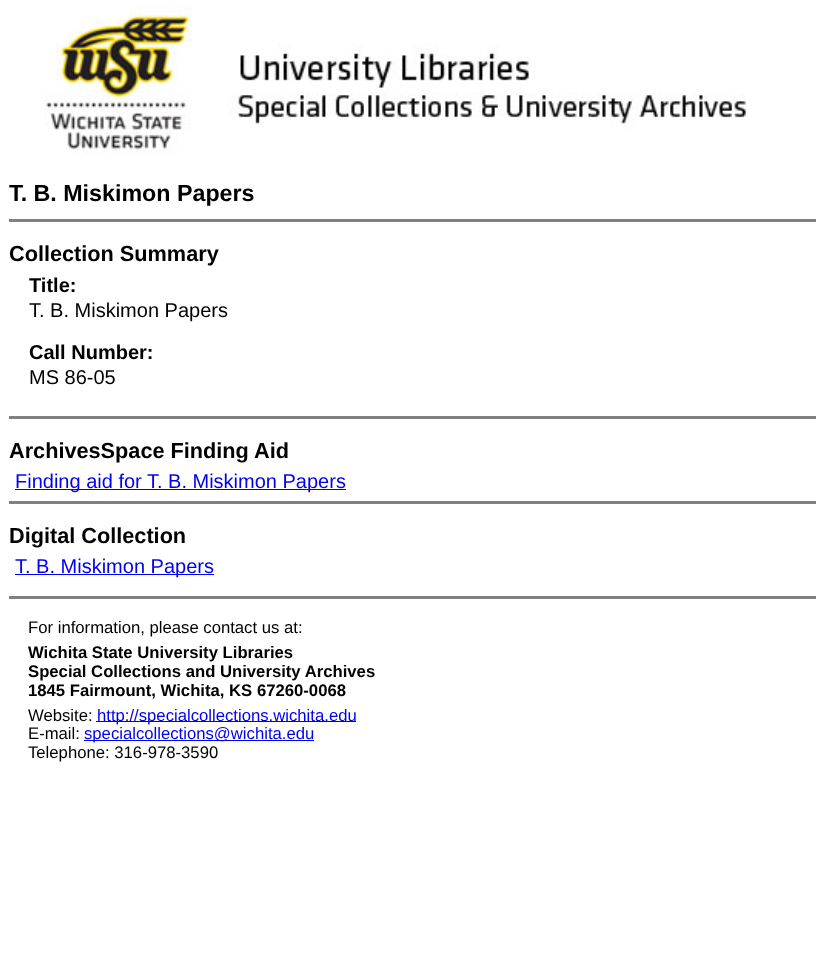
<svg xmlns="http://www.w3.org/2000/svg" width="835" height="974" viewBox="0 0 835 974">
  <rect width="100%" height="100%" fill="rgb(255,255,255)"/>
  <image x="44" y="6" width="702" height="148" href="pic1.png"/>
  <text x="9" y="201" font-family="Liberation Sans" font-size="23.25" font-weight="bold" fill="rgb(0,0,0)">T. B. Miskimon Papers</text>
  <rect x="9" y="219" width="807" height="3" fill="rgb(128,128,128)"/>
  <text x="9" y="261" font-family="Liberation Sans" font-size="21.7" font-weight="bold" fill="rgb(0,0,0)">Collection Summary</text>
  <text x="29" y="292" font-family="Liberation Sans" font-size="20" font-weight="bold" fill="rgb(0,0,0)">Title:</text>
  <text x="29" y="317" font-family="Liberation Sans" font-size="20" fill="rgb(0,0,0)">T. B. Miskimon Papers</text>
  <text x="29" y="359" font-family="Liberation Sans" font-size="20" font-weight="bold" fill="rgb(0,0,0)">Call Number:</text>
  <text x="29" y="384" font-family="Liberation Sans" font-size="20" fill="rgb(0,0,0)">MS 86-05</text>
  <rect x="9" y="416" width="807" height="3" fill="rgb(128,128,128)"/>
  <text x="9" y="458" font-family="Liberation Sans" font-size="21.7" font-weight="bold" fill="rgb(0,0,0)">ArchivesSpace Finding Aid</text>
  <rect x="15" y="489" width="331" height="1" fill="rgb(0,0,238)"/>
  <text x="15" y="488" font-family="Liberation Sans" font-size="20" fill="rgb(0,0,238)">Finding aid for T. B. Miskimon Papers</text>
  <rect x="9" y="501" width="807" height="3" fill="rgb(128,128,128)"/>
  <text x="9" y="543" font-family="Liberation Sans" font-size="21.7" font-weight="bold" fill="rgb(0,0,0)">Digital Collection</text>
  <rect x="15" y="574" width="199" height="1" fill="rgb(0,0,238)"/>
  <text x="15" y="573" font-family="Liberation Sans" font-size="20" fill="rgb(0,0,238)">T. B. Miskimon Papers</text>
  <rect x="9" y="596" width="807" height="3" fill="rgb(128,128,128)"/>
  <text x="28" y="633" font-family="Liberation Sans" font-size="16.7" fill="rgb(0,0,0)">For information, please contact us at:</text>
  <g font-family="Liberation Sans" font-size="16.7" font-weight="bold" fill="rgb(0,0,0)">
    <text>
      <tspan x="28" y="658">Wichita State University Libraries</tspan>
      <tspan x="28" y="677">Special Collections and University Archives</tspan>
      <tspan x="28" y="696">1845 Fairmount, Wichita, KS 67260-0068</tspan>
    </text>
  </g>
  <text x="28" y="721" font-family="Liberation Sans" font-size="16.7" fill="rgb(0,0,0)">Website:</text>
  <rect x="96" y="721" width="260" height="1" fill="rgb(0,0,238)"/>
  <text x="97" y="721" font-family="Liberation Sans" font-size="16.7" fill="rgb(0,0,238)">http://specialcollections.wichita.edu</text>
  <text x="28" y="739" font-family="Liberation Sans" font-size="16.7" fill="rgb(0,0,0)">E-mail:</text>
  <rect x="84" y="740" width="230" height="1" fill="rgb(0,0,238)"/>
  <text x="84" y="739" font-family="Liberation Sans" font-size="16.7" fill="rgb(0,0,238)">specialcollections@wichita.edu</text>
  <text x="28" y="758" font-family="Liberation Sans" font-size="16.7" fill="rgb(0,0,0)">Telephone: 316-978-3590</text>
</svg>
